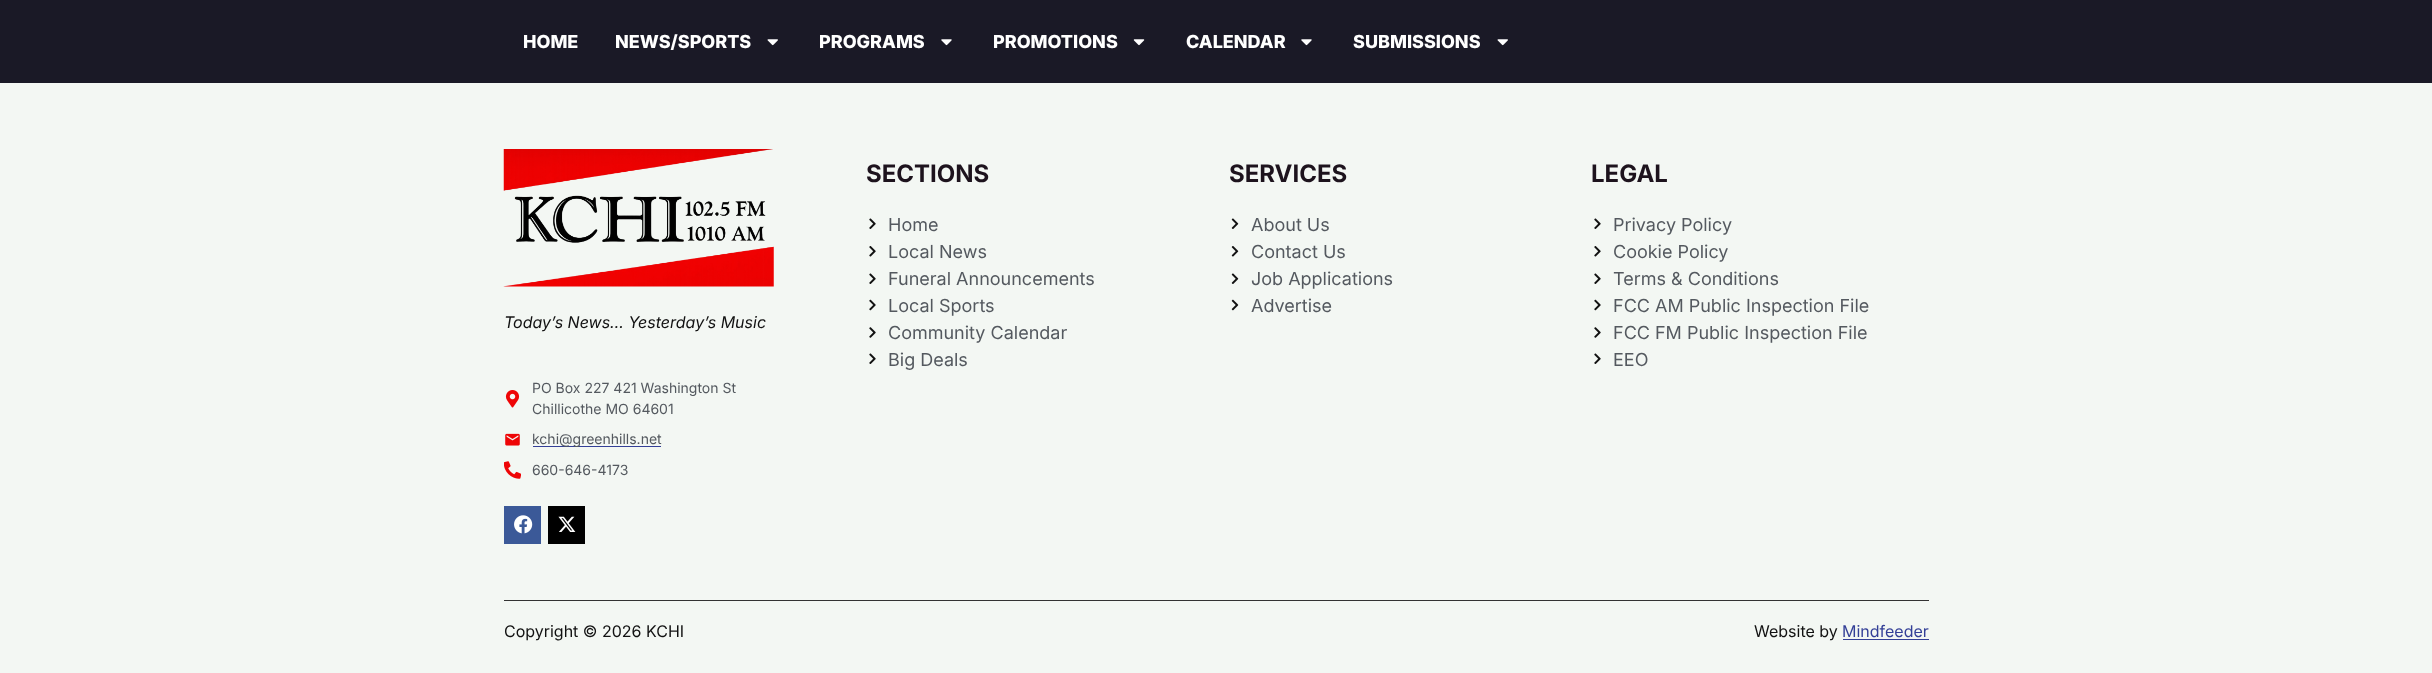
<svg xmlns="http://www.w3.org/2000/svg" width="2432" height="673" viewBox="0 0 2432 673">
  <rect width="100%" height="100%" fill="rgb(243,247,243)"/>
  <rect x="0" y="0" width="2432" height="83" fill="rgb(26,25,38)"/>
  <g font-family="Inter" font-size="18" font-weight="800" fill="rgb(255,255,255)">
    <text x="523" y="48">HOME</text>
    <text x="615" y="48">NEWS/SPORTS</text>
  </g>
  <image x="767" y="39" width="11" height="7" href="pic1.png"/>
  <text x="819" y="48" font-family="Inter" font-size="18" font-weight="800" fill="rgb(255,255,255)">PROGRAMS</text>
  <image x="941" y="39" width="11" height="7" href="pic2.png"/>
  <text x="993" y="48" font-family="Inter" font-size="18" font-weight="800" fill="rgb(255,255,255)">PROMOTIONS</text>
  <image x="1133" y="39" width="12" height="7" href="pic3.png"/>
  <text x="1186" y="48" font-family="Inter" font-size="18" font-weight="800" fill="rgb(255,255,255)">CALENDAR</text>
  <image x="1301" y="39" width="11" height="7" href="pic2.png"/>
  <text x="1353" y="48" font-family="Inter" font-size="18" font-weight="800" fill="rgb(255,255,255)">SUBMISSIONS</text>
  <image x="1497" y="39" width="11" height="7" href="pic1.png"/>
  <text x="866" y="182" font-family="Inter" font-size="24" font-weight="bold" fill="rgb(29,19,29)">SECTIONS</text>
  <image x="869" y="218" width="7" height="11" href="pic4.png"/>
  <text x="888" y="231" font-family="Inter" font-size="18" fill="rgb(84,89,95)">Home</text>
  <image x="869" y="246" width="7" height="11" href="pic5.png"/>
  <text x="888" y="258" font-family="Inter" font-size="18" fill="rgb(84,89,95)">Local News</text>
  <image x="869" y="273" width="7" height="11" href="pic4.png"/>
  <text x="888" y="285" font-family="Inter" font-size="18" fill="rgb(84,89,95)">Funeral Announcements</text>
  <image x="869" y="299" width="7" height="12" href="pic6.png"/>
  <text x="888" y="312" font-family="Inter" font-size="18" fill="rgb(84,89,95)">Local Sports</text>
  <image x="869" y="327" width="7" height="11" href="pic7.png"/>
  <text x="888" y="339" font-family="Inter" font-size="18" fill="rgb(84,89,95)">Community Calendar</text>
  <image x="869" y="353" width="7" height="11" href="pic4.png"/>
  <text x="888" y="366" font-family="Inter" font-size="18" fill="rgb(84,89,95)">Big Deals</text>
  <text x="1229" y="182" font-family="Inter" font-size="24" font-weight="bold" fill="rgb(29,19,29)">SERVICES</text>
  <image x="1231" y="218" width="8" height="11" href="pic8.png"/>
  <text x="1251" y="231" font-family="Inter" font-size="18" fill="rgb(84,89,95)">About Us</text>
  <image x="1231" y="246" width="8" height="11" href="pic9.png"/>
  <text x="1251" y="258" font-family="Inter" font-size="18" fill="rgb(84,89,95)">Contact Us</text>
  <image x="1231" y="273" width="8" height="11" href="pic8.png"/>
  <text x="1251" y="285" font-family="Inter" font-size="18" fill="rgb(84,89,95)">Job Applications</text>
  <image x="1231" y="299" width="8" height="12" href="pic10.png"/>
  <text x="1251" y="312" font-family="Inter" font-size="18" fill="rgb(84,89,95)">Advertise</text>
  <text x="1591" y="182" font-family="Inter" font-size="24" font-weight="bold" fill="rgb(29,19,29)">LEGAL</text>
  <image x="1594" y="218" width="7" height="11" href="pic4.png"/>
  <text x="1613" y="231" font-family="Inter" font-size="18" fill="rgb(84,89,95)">Privacy Policy</text>
  <image x="1594" y="246" width="7" height="11" href="pic5.png"/>
  <text x="1613" y="258" font-family="Inter" font-size="18" fill="rgb(84,89,95)">Cookie Policy</text>
  <image x="1594" y="273" width="7" height="11" href="pic4.png"/>
  <text x="1613" y="285" font-family="Inter" font-size="18" fill="rgb(84,89,95)">Terms &amp; Conditions</text>
  <image x="1594" y="299" width="7" height="12" href="pic6.png"/>
  <text x="1613" y="312" font-family="Inter" font-size="18" fill="rgb(84,89,95)">FCC AM Public Inspection File</text>
  <image x="1594" y="327" width="7" height="11" href="pic7.png"/>
  <text x="1613" y="339" font-family="Inter" font-size="18" fill="rgb(84,89,95)">FCC FM Public Inspection File</text>
  <image x="1594" y="353" width="7" height="11" href="pic4.png"/>
  <text x="1613" y="366" font-family="Inter" font-size="18" fill="rgb(84,89,95)">EEO</text>
  <image x="503" y="149" width="271" height="138" href="pic11.png"/>
  <text x="504" y="328" font-family="Inter" font-size="16" font-style="italic" fill="rgb(17,17,17)">Today’s News… Yesterday’s Music</text>
  <image x="505" y="390" width="15" height="18" href="pic12.png"/>
  <g font-family="Inter" font-size="14" fill="rgb(84,89,95)">
    <text>
      <tspan x="532" y="393">PO Box 227 421 Washington St</tspan>
      <tspan x="532" y="414">Chillicothe MO 64601</tspan>
    </text>
  </g>
  <image x="505" y="433" width="15" height="13" href="pic13.png"/>
  <rect x="533" y="446" width="128" height="1" fill="rgb(51,63,151)"/>
  <text x="532" y="444" font-family="Inter" font-size="14" fill="rgb(84,89,95)">kchi@greenhills.net</text>
  <image x="504" y="461" width="17" height="18" href="pic14.png"/>
  <text x="532" y="475" font-family="Inter" font-size="14" fill="rgb(84,89,95)">660-646-4173</text>
  <rect x="504" y="506" width="37" height="38" fill="rgb(59,89,152)"/>
  <image x="514" y="515" width="19" height="19" href="pic15.png"/>
  <rect x="548" y="506" width="37" height="38" fill="rgb(0,0,0)"/>
  <image x="558" y="516" width="18" height="16" href="pic16.png"/>
  <rect x="504" y="600" width="1425" height="1" fill="rgb(51,51,51)"/>
  <g font-family="Inter" font-size="16" fill="rgb(17,17,17)">
    <text x="504" y="637">Copyright © 2026 KCHI</text>
    <text x="1754" y="637">Website by</text>
  </g>
  <text x="1842" y="637" font-family="Inter" font-size="16" fill="rgb(51,63,151)">Mindfeeder</text>
  <rect x="1843" y="639" width="86" height="1" fill="rgb(51,63,151)"/>
</svg>
